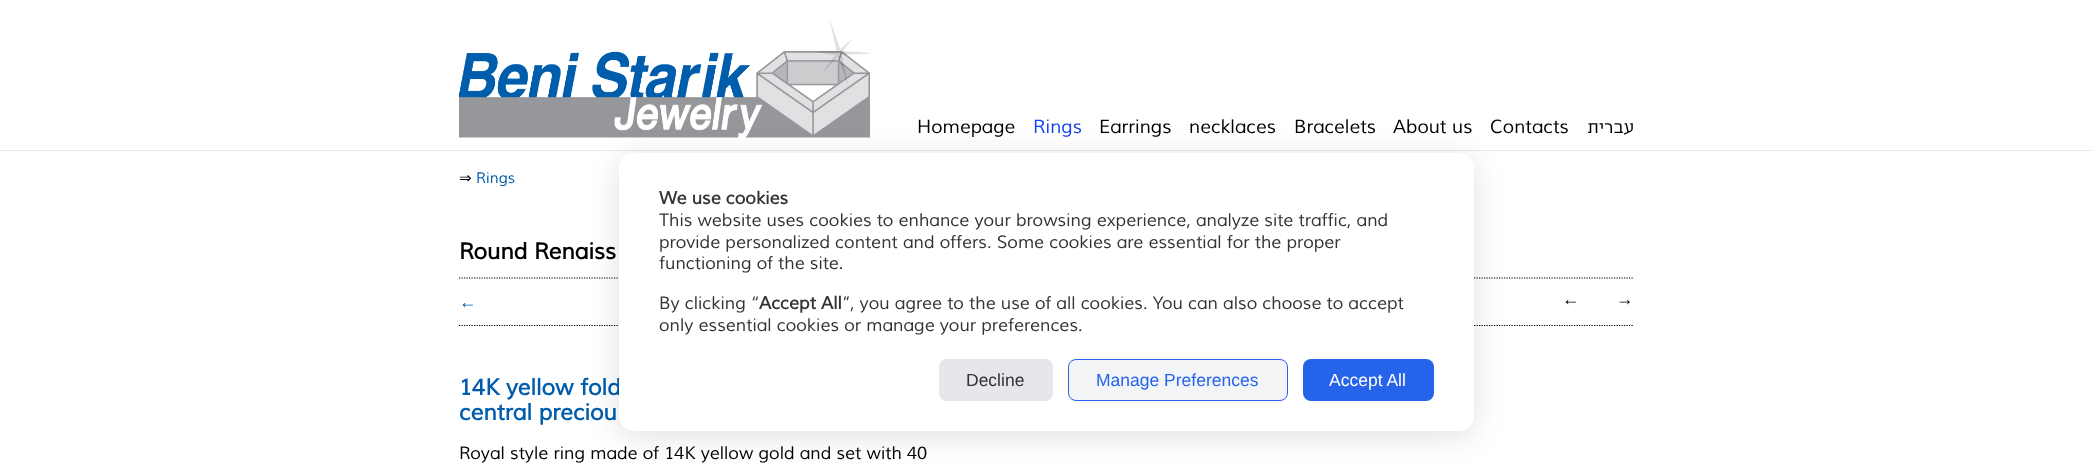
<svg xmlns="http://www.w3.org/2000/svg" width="2092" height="468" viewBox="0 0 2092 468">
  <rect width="100%" height="100%" fill="rgb(255,255,255)"/>
  <rect x="0" y="150" width="2092" height="1" fill="rgb(232,232,232)"/>
  <image x="459" y="20" width="411" height="118" href="pic1.png"/>
  <text x="917" y="133" font-family="Muli" font-size="18.75" font-style="italic" fill="rgb(0,0,0)">Homepage</text>
  <text x="1033" y="133" font-family="Muli" font-size="18.75" font-style="italic" fill="rgb(21,68,235)">Rings</text>
  <g font-family="Muli" font-size="18.75" font-style="italic" fill="rgb(0,0,0)">
    <text x="1099" y="133">Earrings</text>
    <text x="1189" y="133">necklaces</text>
    <text x="1294" y="133">Bracelets</text>
    <text x="1393" y="133">About us</text>
    <text x="1490" y="133">Contacts</text>
  </g>
  <text x="1634" y="133" font-family="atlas" font-size="18.75" direction="rtl" fill="rgb(0,0,0)">עברית</text>
  <text x="459" y="183" font-family="DejaVu Sans" font-size="15" fill="rgb(0,0,0)">⇒</text>
  <text x="476" y="183" font-family="Muli" font-size="15" font-style="italic" fill="rgb(0,92,172)">Rings</text>
  <text x="459" y="259" font-family="Muli" font-size="22.5" font-weight="bold" font-style="italic" fill="rgb(0,0,0)">Round Renaiss</text>
  <path d="M459 278H1634" fill="none" stroke="rgb(0,0,0)" stroke-width="1.2" stroke-dasharray="1.25 1.25"/>
  <path d="M459 325.5H1634" fill="none" stroke="rgb(0,0,0)" stroke-width="1.2" stroke-dasharray="1.25 1.25"/>
  <g font-family="Liberation Serif" font-size="17.5" fill="rgb(0,0,0)">
    <text x="1562" y="305">←</text>
    <text x="1616" y="305">→</text>
  </g>
  <text x="459" y="308" font-family="Liberation Serif" font-size="17.5" fill="rgb(0,92,172)">←</text>
  <g font-family="Muli" font-size="22.5" font-weight="bold" font-style="italic" fill="rgb(0,92,172)">
    <text>
      <tspan x="459" y="395">14K yellow fold</tspan>
      <tspan x="459" y="420">central preciou</tspan>
    </text>
  </g>
  <text x="459" y="459" font-family="Muli" font-size="17.5" font-style="italic" fill="rgb(0,0,0)">Royal style ring made of 14K yellow gold and set with 40</text>
  <rect x="619" y="158" width="855" height="278" rx="15" fill="rgba(0,0,0,0.12)" filter="blur(15px)"/>
  <rect x="619" y="153" width="855" height="278" rx="15" fill="rgb(255,255,255)"/>
  <text x="659" y="204" font-family="Muli" font-size="17.5" font-weight="bold" font-style="italic" fill="rgb(51,51,51)">We use cookies</text>
  <g font-family="Muli" font-size="17.5" font-style="italic" fill="rgb(51,51,51)">
    <text>
      <tspan x="659" y="226">This website uses cookies to enhance your browsing experience, analyze site traffic, and</tspan>
      <tspan x="659" y="248">provide personalized content and offers. Some cookies are essential for the proper</tspan>
      <tspan x="659" y="269">functioning of the site.</tspan>
    </text>
    <text x="659" y="309">By clicking “</text>
  </g>
  <text x="759" y="309" font-family="Muli" font-size="17.5" font-weight="bold" font-style="italic" fill="rgb(51,51,51)">Accept All</text>
  <g font-family="Muli" font-size="17.5" font-style="italic" fill="rgb(51,51,51)">
    <text x="842" y="309">”, you agree to the use of all cookies. You can also choose to accept</text>
    <text x="659" y="331">only essential cookies or manage your preferences.</text>
  </g>
  <rect x="939" y="359" width="114" height="42" rx="8" fill="rgb(229,231,235)"/>
  <text x="966" y="386" font-family="Liberation Sans" font-size="17.5" fill="rgb(51,51,51)">Decline</text>
  <rect x="1068.5" y="359.5" width="219" height="41" rx="7.5" fill="rgb(243,244,246)" stroke="rgb(37,99,235)"/>
  <text x="1096" y="386" font-family="Liberation Sans" font-size="17.5" fill="rgb(37,99,235)">Manage Preferences</text>
  <rect x="1303" y="359" width="131" height="42" rx="8" fill="rgb(37,99,235)"/>
  <text x="1329" y="386" font-family="Liberation Sans" font-size="17.5" fill="rgb(255,255,255)">Accept All</text>
</svg>
